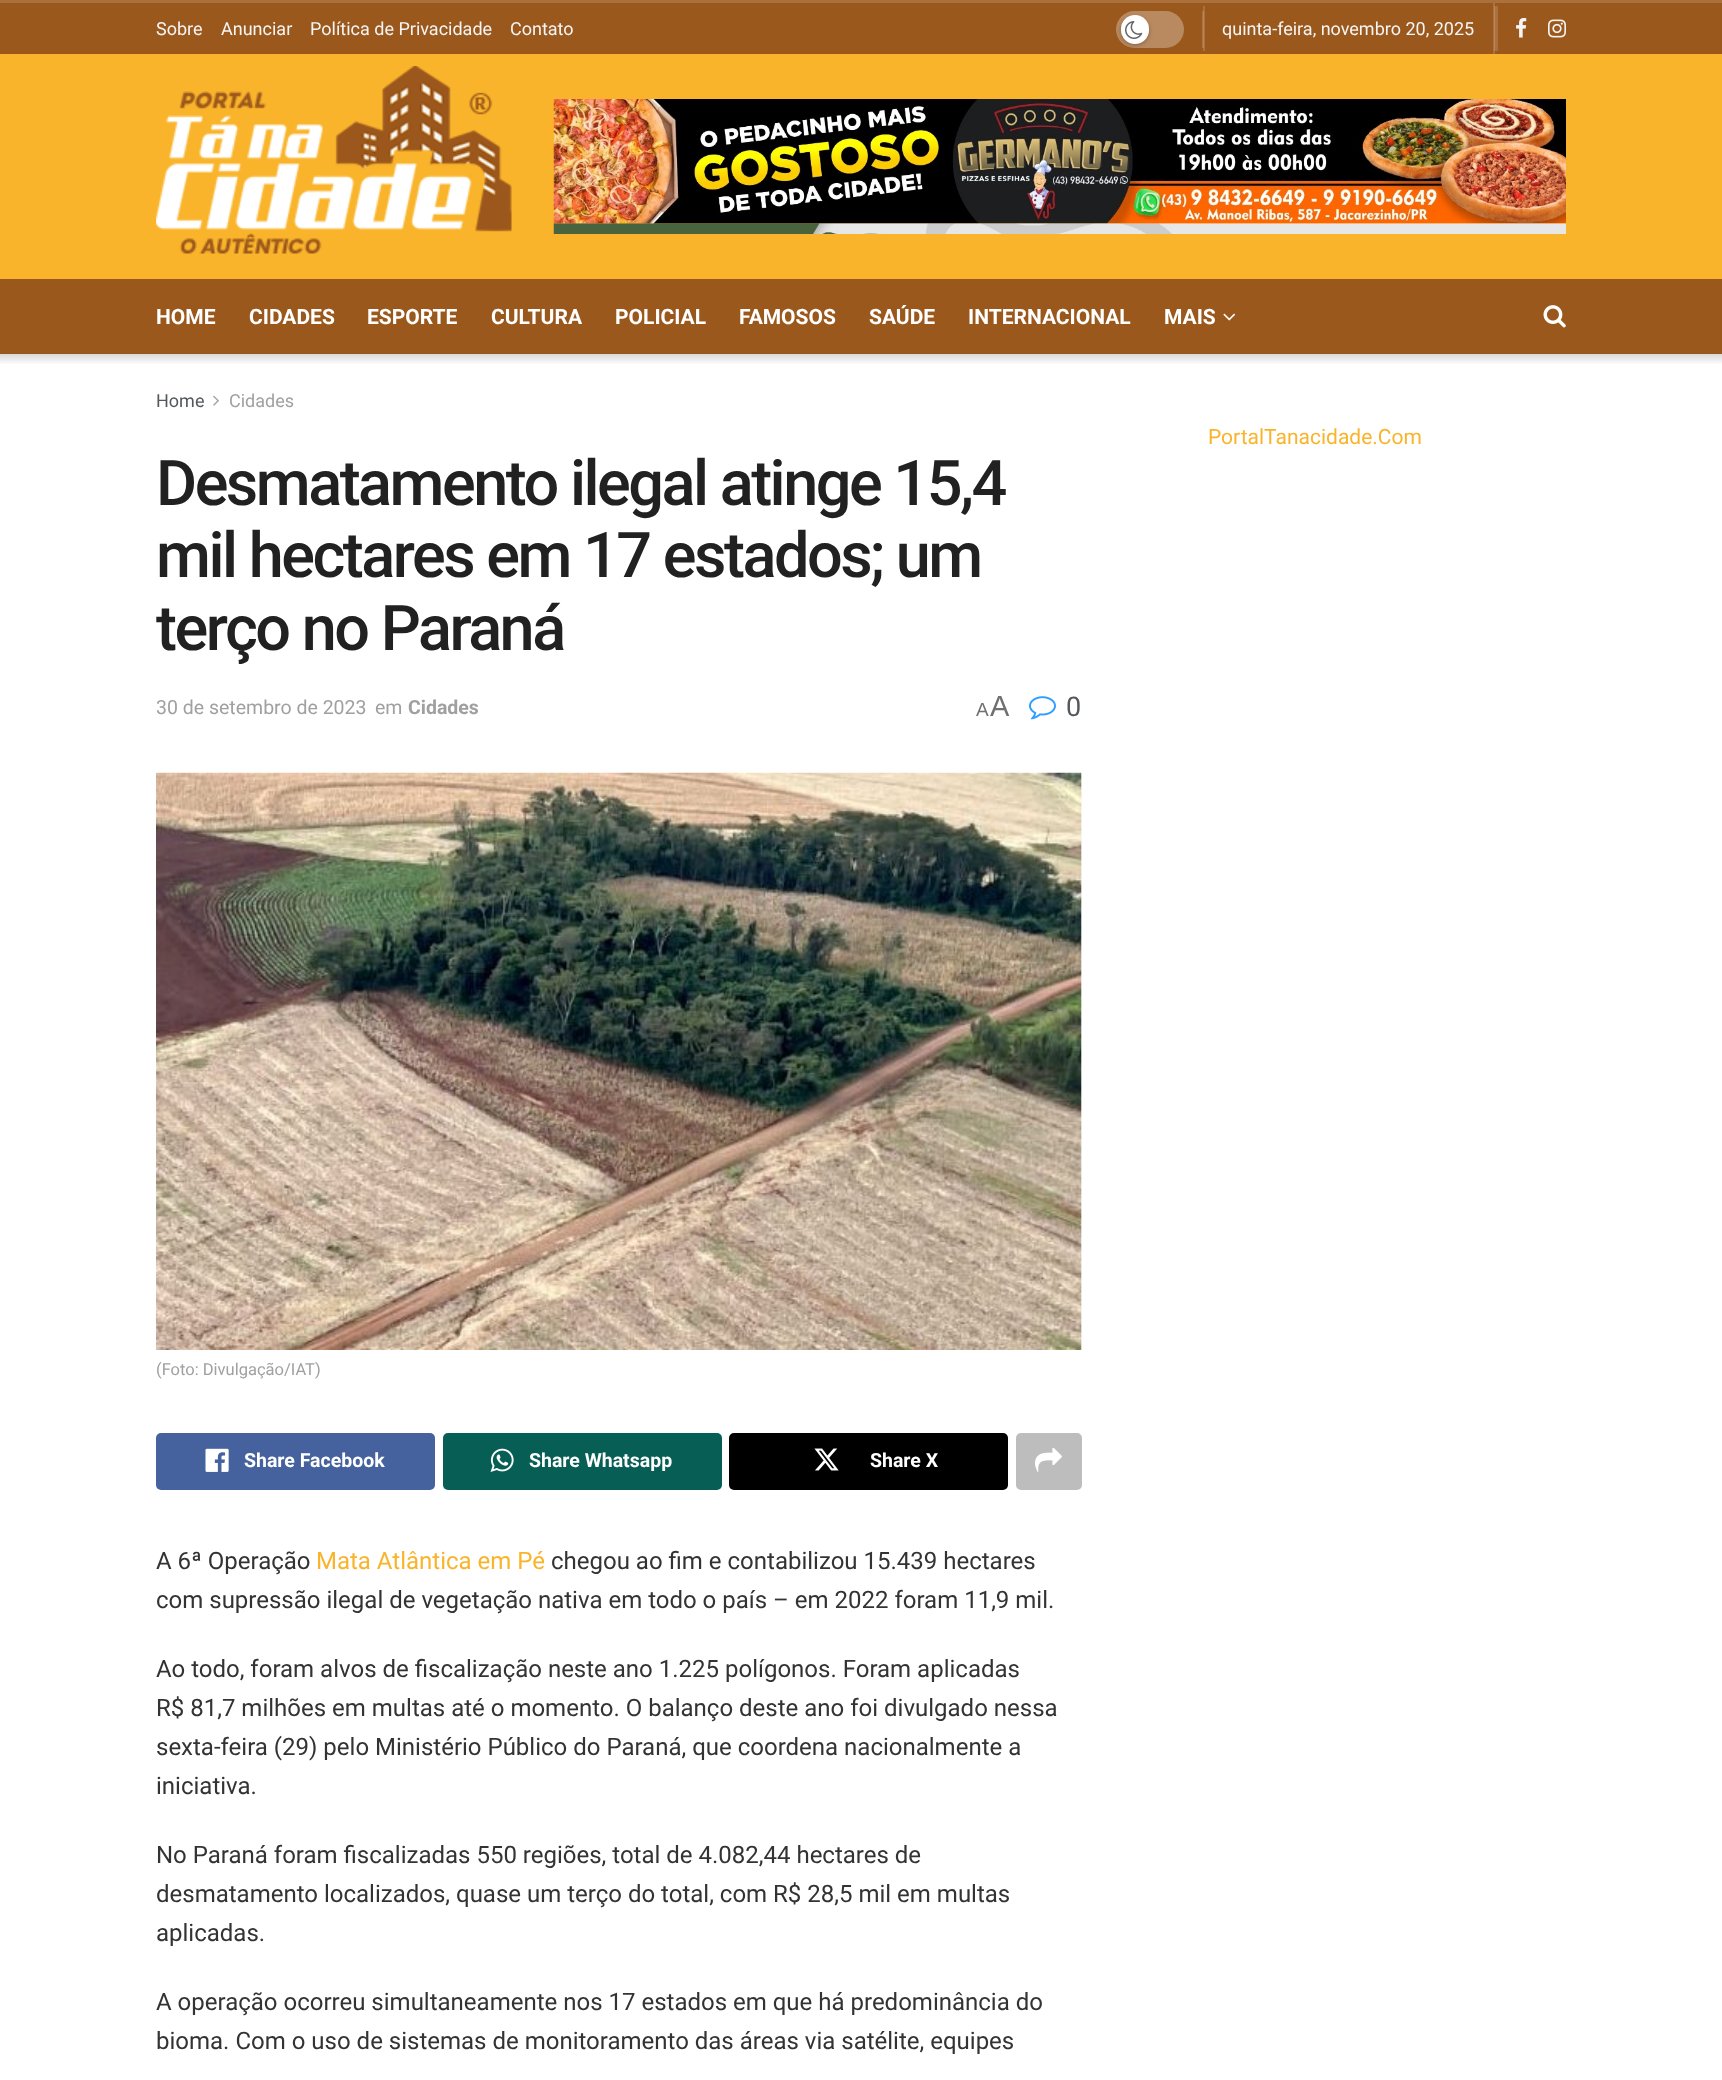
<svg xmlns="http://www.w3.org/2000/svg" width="1722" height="2080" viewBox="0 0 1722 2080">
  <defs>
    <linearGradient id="g1" gradientUnits="userSpaceOnUse" x1="861" y1="354" x2="861" y2="365"><stop offset="0" stop-color="rgb(217,217,217)"/><stop offset="1" stop-color="rgb(255,255,255)"/></linearGradient>
  </defs>
  <rect width="100%" height="100%" fill="rgb(255,255,255)"/>
  <rect x="0" y="3" width="1722" height="51" fill="rgb(155,88,28)"/>
  <rect x="1495" y="6" width="3" height="45" fill="rgb(170,113,62)"/>
  <rect x="1203" y="6" width="2" height="45" fill="rgb(170,113,62)"/>
  <rect x="0" y="0" width="1722" height="3" fill="rgb(170,113,62)"/>
  <g font-family="Roboto" font-size="18" fill="rgb(245,245,245)">
    <text x="156" y="35">Sobre</text>
    <text x="221" y="35">Anunciar</text>
    <text x="310" y="35">Política de Privacidade</text>
    <text x="510" y="35">Contato</text>
  </g>
  <rect x="1202" y="11" width="1" height="37" fill="rgb(170,113,62)"/>
  <rect x="1203" y="11" width="1" height="37" fill="rgb(183,134,91)"/>
  <rect x="1116" y="11" width="68" height="37" rx="18.5" fill="rgb(185,138,96)"/>
  <rect x="1121" y="17" width="28" height="28" rx="14" fill="rgba(0,0,0,0.3)" filter="blur(2px)"/>
  <rect x="1121" y="15" width="28" height="29" rx="14" fill="rgb(255,255,255)"/>
  <image x="1125" y="21" width="18" height="18" href="pic1.png"/>
  <rect x="1493" y="3" width="2" height="51" fill="rgb(170,113,62)"/>
  <rect x="1494" y="6" width="1" height="45" fill="rgb(183,134,91)"/>
  <text x="1222" y="35" font-family="Roboto" font-size="18" fill="rgb(245,245,245)">quinta-feira, novembro 20, 2025</text>
  <image x="1516" y="18" width="11" height="20" href="pic2.png"/>
  <image x="1548" y="19" width="18" height="19" href="pic3.png"/>
  <rect x="0" y="54" width="1722" height="225" fill="rgb(249,180,43)"/>
  <image x="156" y="66" width="356" height="188" href="pic4.png"/>
  <image x="553" y="99" width="1013" height="125" href="pic5.png"/>
  <image x="553" y="223" width="1013" height="11" href="pic6.png"/>
  <rect x="0" y="279" width="1722" height="75" fill="rgb(155,88,28)"/>
  <g font-family="Roboto" font-size="21" font-weight="bold" fill="rgb(255,255,255)">
    <text x="156" y="324">HOME</text>
    <text x="249" y="324">CIDADES</text>
    <text x="367" y="324">ESPORTE</text>
    <text x="491" y="324">CULTURA</text>
    <text x="615" y="324">POLICIAL</text>
    <text x="739" y="324">FAMOSOS</text>
    <text x="869" y="324">SAÚDE</text>
    <text x="968" y="324">INTERNACIONAL</text>
    <text x="1164" y="324">MAIS</text>
  </g>
  <image x="1223" y="313" width="13" height="8" href="pic7.png"/>
  <image x="1543" y="305" width="23" height="23" href="pic8.png"/>
  <rect x="0" y="354" width="1722" height="10" fill="url(#g1)"/>
  <text x="156" y="407" font-family="Roboto" font-size="18" fill="rgb(83,88,92)">Home</text>
  <image x="213" y="395" width="6" height="11" href="pic9.png"/>
  <text x="229" y="407" font-family="Roboto" font-size="18" fill="rgb(160,160,160)">Cidades</text>
  <g font-family="Roboto" font-size="63" font-weight="500" letter-spacing="-2.5" fill="rgb(33,33,33)">
    <text>
      <tspan x="156" y="505">Desmatamento ilegal atinge 15,4</tspan>
      <tspan x="156" y="577">mil hectares em 17 estados; um</tspan>
      <tspan x="156" y="650">terço no Paraná</tspan>
    </text>
  </g>
  <g font-family="Roboto" font-size="19.5" fill="rgb(160,160,160)">
    <text x="156" y="714">30 de setembro de 2023</text>
    <text x="375" y="714">em</text>
  </g>
  <text x="408" y="714" font-family="Roboto" font-size="19.5" font-weight="bold" fill="rgb(160,160,160)">Cidades</text>
  <text x="976" y="716" font-family="Liberation Sans" font-size="19" fill="rgb(112,112,112)">A</text>
  <text x="990" y="716" font-family="Liberation Sans" font-size="29" fill="rgb(112,112,112)">A</text>
  <image x="1029" y="696" width="27" height="24" href="pic10.png"/>
  <text x="1066" y="716" font-family="Roboto" font-size="27" fill="rgb(83,88,92)">0</text>
  <rect x="1081" y="773" width="1" height="577" fill="rgb(247,247,247)"/>
  <image x="156" y="772" width="926" height="578" href="pic11.png"/>
  <text x="156" y="1375" font-family="Roboto" font-size="16.5" fill="rgb(160,160,160)">(Foto: Divulgação/IAT)</text>
  <rect x="156" y="1433" width="279" height="57" rx="5" fill="rgb(69,98,159)"/>
  <image x="205" y="1448" width="24" height="24" href="pic12.png"/>
  <text x="244" y="1467" font-family="Roboto" font-size="19.5" font-weight="bold" fill="rgb(255,255,255)">Share Facebook</text>
  <rect x="443" y="1433" width="279" height="57" rx="5" fill="rgb(7,94,84)"/>
  <image x="490" y="1448" width="24" height="24" href="pic13.png"/>
  <text x="529" y="1467" font-family="Roboto" font-size="19.5" font-weight="bold" fill="rgb(255,255,255)">Share Whatsapp</text>
  <rect x="729" y="1433" width="279" height="57" rx="5" fill="rgb(0,0,0)"/>
  <image x="814" y="1448" width="25" height="23" href="pic14.png"/>
  <text x="870" y="1467" font-family="Roboto" font-size="19.5" font-weight="bold" fill="rgb(255,255,255)">Share X</text>
  <rect x="1016" y="1433" width="66" height="57" rx="5" fill="rgb(189,189,189)"/>
  <image x="1035" y="1447" width="27" height="25" href="pic15.png"/>
  <text x="156" y="1569" font-family="Roboto" font-size="24" fill="rgb(51,51,51)">A 6ª Operação</text>
  <text x="316" y="1569" font-family="Roboto" font-size="24" fill="rgb(249,180,43)">Mata Atlântica em Pé</text>
  <g font-family="Roboto" font-size="24" fill="rgb(51,51,51)">
    <text x="551" y="1569">chegou ao fim e contabilizou 15.439 hectares</text>
    <text x="156" y="1608">com supressão ilegal de vegetação nativa em todo o país – em 2022 foram 11,9 mil.</text>
    <text>
      <tspan x="156" y="1677">Ao todo, foram alvos de fiscalização neste ano 1.225 polígonos. Foram aplicadas</tspan>
      <tspan x="156" y="1716">R$ 81,7 milhões em multas até o momento. O balanço deste ano foi divulgado nessa</tspan>
      <tspan x="156" y="1755">sexta-feira (29) pelo Ministério Público do Paraná, que coordena nacionalmente a</tspan>
      <tspan x="156" y="1794">iniciativa.</tspan>
    </text>
    <text>
      <tspan x="156" y="1863">No Paraná foram fiscalizadas 550 regiões, total de 4.082,44 hectares de</tspan>
      <tspan x="156" y="1902">desmatamento localizados, quase um terço do total, com R$ 28,5 mil em multas</tspan>
      <tspan x="156" y="1941">aplicadas.</tspan>
    </text>
    <text>
      <tspan x="156" y="2010">A operação ocorreu simultaneamente nos 17 estados em que há predominância do</tspan>
      <tspan x="156" y="2049">bioma. Com o uso de sistemas de monitoramento das áreas via satélite, equipes</tspan>
    </text>
  </g>
  <text x="1208" y="444" font-family="Roboto" font-size="21" fill="rgb(249,180,43)">PortalTanacidade.Com</text>
</svg>
